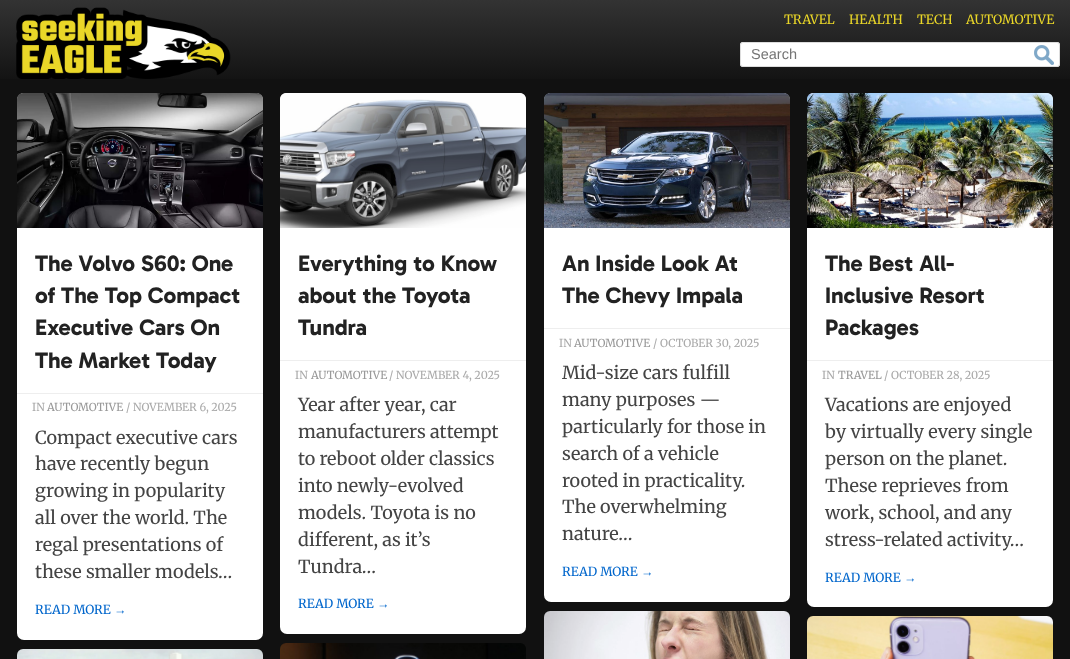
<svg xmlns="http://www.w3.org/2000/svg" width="1070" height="659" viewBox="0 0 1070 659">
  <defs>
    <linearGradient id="g1" gradientUnits="userSpaceOnUse" x1="535" y1="85" x2="535" y2="0"><stop offset="0" stop-color="rgb(17,17,17)"/><stop offset="1" stop-color="rgb(51,51,51)"/></linearGradient>
  </defs>
  <rect width="100%" height="100%" fill="rgb(17,17,17)"/>
  <rect x="0" y="0" width="1070" height="79" fill="url(#g1)"/>
  <image x="16" y="7" width="215" height="72" href="pic1.png"/>
  <g font-family="Merriweather" font-size="12.75" font-weight="300" fill="rgb(234,215,40)">
    <text x="784" y="24">TRAVEL</text>
    <text x="849" y="24">HEALTH</text>
    <text x="917" y="24">TECH</text>
    <text x="966" y="24">AUTOMOTIVE</text>
  </g>
  <rect x="740" y="42" width="320" height="25" rx="3" fill="rgb(255,255,255)"/>
  <image x="1034" y="45" width="20" height="20" href="pic2.png"/>
  <rect x="740.5" y="42.5" width="319" height="24" rx="2.5" fill="none" stroke="rgb(221,221,221)"/>
  <text x="751" y="59" font-family="Liberation Sans" font-size="14.5" fill="rgb(117,117,117)">Search</text>
  <rect x="17" y="93" width="246" height="547" rx="7" fill="rgb(255,255,255)"/>
  <image x="17" y="93" width="246" height="135" href="pic3.png"/>
  <rect x="17" y="393" width="246" height="1" fill="rgb(238,238,238)"/>
  <g font-family="Gabarito" font-size="22.75" font-weight="bold" fill="rgb(34,34,34)">
    <text>
      <tspan x="35" y="271">The Volvo S60: One</tspan>
      <tspan x="35" y="303">of The Top Compact</tspan>
      <tspan x="35" y="335">Executive Cars On</tspan>
      <tspan x="35" y="368">The Market Today</tspan>
    </text>
  </g>
  <text x="32" y="411" font-family="Merriweather" font-size="11" font-weight="300" fill="rgb(170,170,170)">IN</text>
  <text x="47" y="411" font-family="Merriweather" font-size="11" font-weight="300" fill="rgb(153,153,153)">AUTOMOTIVE</text>
  <text x="126" y="411" font-family="Merriweather" font-size="11" font-weight="300" fill="rgb(170,170,170)">/ NOVEMBER 6, 2025</text>
  <g font-family="Merriweather" font-size="18" font-weight="300" fill="rgb(68,68,68)">
    <text>
      <tspan x="35" y="444">Compact executive cars</tspan>
      <tspan x="35" y="470">have recently begun</tspan>
      <tspan x="35" y="497">growing in popularity</tspan>
      <tspan x="35" y="524">all over the world. The</tspan>
      <tspan x="35" y="551">regal presentations of</tspan>
      <tspan x="35" y="578">these smaller models…</tspan>
    </text>
  </g>
  <text x="35" y="614" font-family="Merriweather" font-size="12.5" font-weight="300" fill="rgb(0,102,204)">READ MORE</text>
  <text x="114" y="614" font-family="Liberation Serif" font-size="12.5" fill="rgb(0,102,204)">→</text>
  <rect x="280" y="93" width="246" height="541" rx="7" fill="rgb(255,255,255)"/>
  <image x="280" y="93" width="246" height="135" href="pic4.png"/>
  <rect x="280" y="360" width="246" height="1" fill="rgb(238,238,238)"/>
  <g font-family="Gabarito" font-size="22.75" font-weight="bold" fill="rgb(34,34,34)">
    <text>
      <tspan x="298" y="271">Everything to Know</tspan>
      <tspan x="298" y="303">about the Toyota</tspan>
      <tspan x="298" y="335">Tundra</tspan>
    </text>
  </g>
  <text x="295" y="379" font-family="Merriweather" font-size="11" font-weight="300" fill="rgb(170,170,170)">IN</text>
  <text x="311" y="379" font-family="Merriweather" font-size="11" font-weight="300" fill="rgb(153,153,153)">AUTOMOTIVE</text>
  <text x="389" y="379" font-family="Merriweather" font-size="11" font-weight="300" fill="rgb(170,170,170)">/ NOVEMBER 4, 2025</text>
  <g font-family="Merriweather" font-size="18" font-weight="300" fill="rgb(68,68,68)">
    <text>
      <tspan x="298" y="411">Year after year, car</tspan>
      <tspan x="298" y="438">manufacturers attempt</tspan>
      <tspan x="298" y="465">to reboot older classics</tspan>
      <tspan x="298" y="492">into newly-evolved</tspan>
      <tspan x="298" y="519">models. Toyota is no</tspan>
      <tspan x="298" y="546">different, as it’s</tspan>
      <tspan x="298" y="573">Tundra…</tspan>
    </text>
  </g>
  <text x="298" y="608" font-family="Merriweather" font-size="12.5" font-weight="300" fill="rgb(0,102,204)">READ MORE</text>
  <text x="377" y="608" font-family="Liberation Serif" font-size="12.5" fill="rgb(0,102,204)">→</text>
  <rect x="544" y="93" width="246" height="509" rx="7" fill="rgb(255,255,255)"/>
  <image x="544" y="93" width="246" height="135" href="pic5.png"/>
  <rect x="544" y="328" width="246" height="1" fill="rgb(238,238,238)"/>
  <g font-family="Gabarito" font-size="22.75" font-weight="bold" fill="rgb(34,34,34)">
    <text>
      <tspan x="562" y="271">An Inside Look At</tspan>
      <tspan x="562" y="303">The Chevy Impala</tspan>
    </text>
  </g>
  <text x="559" y="347" font-family="Merriweather" font-size="11" font-weight="300" fill="rgb(170,170,170)">IN</text>
  <text x="574" y="347" font-family="Merriweather" font-size="11" font-weight="300" fill="rgb(153,153,153)">AUTOMOTIVE</text>
  <text x="653" y="347" font-family="Merriweather" font-size="11" font-weight="300" fill="rgb(170,170,170)">/ OCTOBER 30, 2025</text>
  <g font-family="Merriweather" font-size="18" font-weight="300" fill="rgb(68,68,68)">
    <text>
      <tspan x="562" y="379">Mid-size cars fulfill</tspan>
      <tspan x="562" y="406">many purposes —</tspan>
      <tspan x="562" y="433">particularly for those in</tspan>
      <tspan x="562" y="460">search of a vehicle</tspan>
      <tspan x="562" y="487">rooted in practicality.</tspan>
      <tspan x="562" y="513">The overwhelming</tspan>
      <tspan x="562" y="540">nature…</tspan>
    </text>
  </g>
  <text x="562" y="576" font-family="Merriweather" font-size="12.5" font-weight="300" fill="rgb(0,102,204)">READ MORE</text>
  <text x="641" y="576" font-family="Liberation Serif" font-size="12.5" fill="rgb(0,102,204)">→</text>
  <rect x="807" y="93" width="246" height="514" rx="7" fill="rgb(255,255,255)"/>
  <image x="807" y="93" width="246" height="135" href="pic6.png"/>
  <rect x="807" y="360" width="246" height="1" fill="rgb(238,238,238)"/>
  <g font-family="Gabarito" font-size="22.75" font-weight="bold" fill="rgb(34,34,34)">
    <text>
      <tspan x="825" y="271">The Best All-</tspan>
      <tspan x="825" y="303">Inclusive Resort</tspan>
      <tspan x="825" y="335">Packages</tspan>
    </text>
  </g>
  <text x="822" y="379" font-family="Merriweather" font-size="11" font-weight="300" fill="rgb(170,170,170)">IN</text>
  <text x="838" y="379" font-family="Merriweather" font-size="11" font-weight="300" fill="rgb(153,153,153)">TRAVEL</text>
  <text x="884" y="379" font-family="Merriweather" font-size="11" font-weight="300" fill="rgb(170,170,170)">/ OCTOBER 28, 2025</text>
  <g font-family="Merriweather" font-size="18" font-weight="300" fill="rgb(68,68,68)">
    <text>
      <tspan x="825" y="411">Vacations are enjoyed</tspan>
      <tspan x="825" y="438">by virtually every single</tspan>
      <tspan x="825" y="465">person on the planet.</tspan>
      <tspan x="825" y="492">These reprieves from</tspan>
      <tspan x="825" y="519">work, school, and any</tspan>
      <tspan x="825" y="546">stress-related activity…</tspan>
    </text>
  </g>
  <text x="825" y="582" font-family="Merriweather" font-size="12.5" font-weight="300" fill="rgb(0,102,204)">READ MORE</text>
  <text x="904" y="582" font-family="Liberation Serif" font-size="12.5" fill="rgb(0,102,204)">→</text>
  <image x="17" y="649" width="246" height="10" href="pic7.png"/>
  <image x="280" y="643" width="246" height="16" href="pic8.png"/>
  <image x="544" y="611" width="246" height="48" href="pic9.png"/>
  <image x="807" y="616" width="246" height="43" href="pic10.png"/>
</svg>
